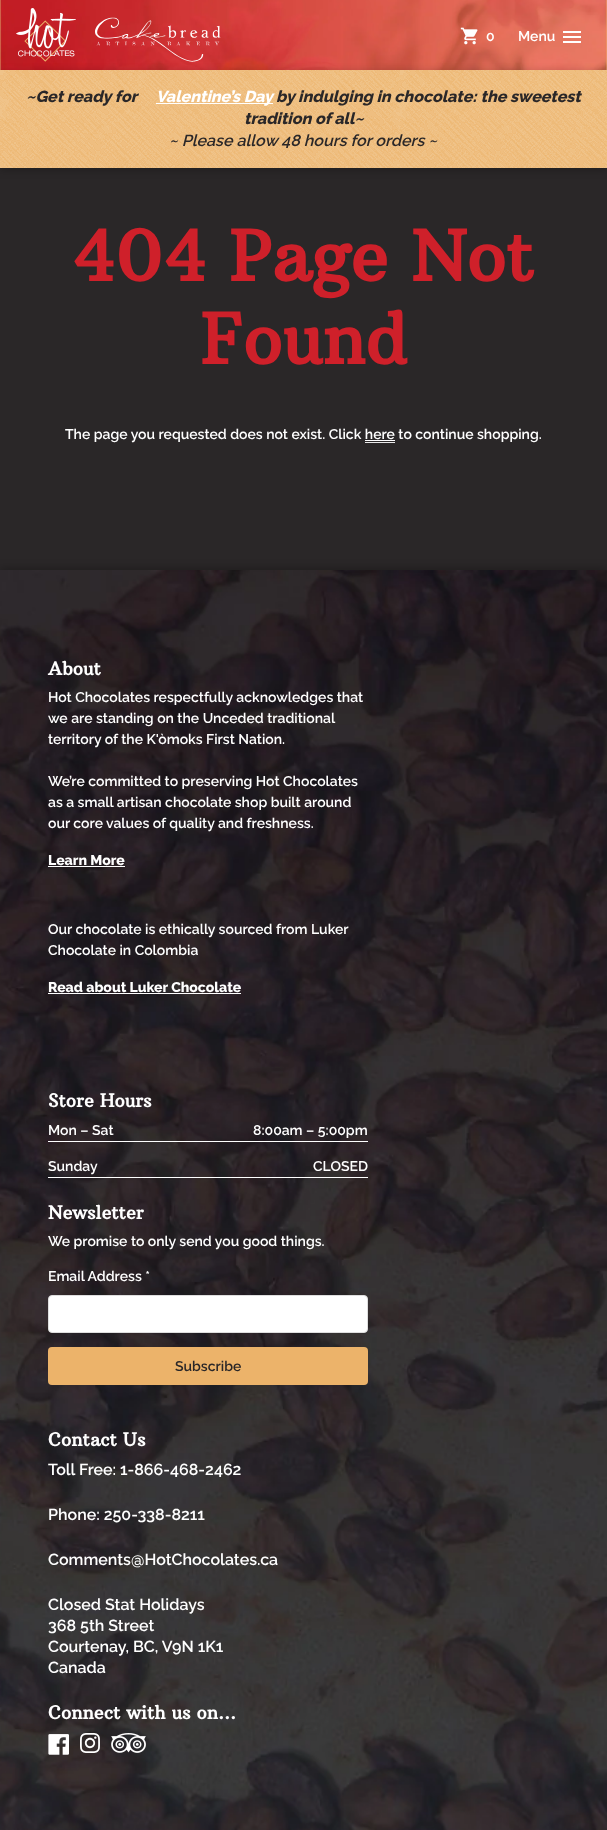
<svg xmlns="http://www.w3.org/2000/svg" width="607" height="1830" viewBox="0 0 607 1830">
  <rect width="100%" height="100%" fill="rgb(42,39,40)"/>
  <image x="0" y="0" width="607" height="70" href="pic1.png"/>
  <rect x="0" y="72" width="607" height="98" fill="rgba(0,0,0,0.24)" filter="blur(4px)"/>
  <image x="16" y="8" width="60" height="54" href="pic2.png"/>
  <image x="95" y="17" width="126" height="45" href="pic3.png"/>
  <image x="460" y="27" width="18" height="18" href="pic4.png"/>
  <g font-family="Raleway" font-size="14" font-weight="600" fill="rgb(255,255,255)">
    <text x="486" y="41">0</text>
    <text x="518" y="41">Menu</text>
  </g>
  <image x="563" y="31" width="18" height="12" href="pic5.png"/>
  <rect x="0" y="70" width="607" height="98" fill="rgb(236,179,106)"/>
  <image x="0" y="70" width="607" height="98" href="pic6.png"/>
  <text x="26" y="102" font-family="Raleway" font-size="16" font-weight="800" font-style="italic" fill="rgb(42,39,40)">~Get ready for</text>
  <rect x="156" y="103" width="117" height="1" fill="rgb(255,255,255)"/>
  <text x="156" y="102" font-family="Raleway" font-size="16" font-weight="800" font-style="italic" fill="rgb(255,255,255)">Valentine’s Day</text>
  <g font-family="Raleway" font-size="16" font-weight="800" font-style="italic" fill="rgb(42,39,40)">
    <text x="276" y="102">by indulging in chocolate: the sweetest</text>
    <text x="244" y="124">tradition of all~</text>
  </g>
  <text x="169" y="146" font-family="Raleway" font-size="16" font-weight="600" font-style="italic" fill="rgb(42,39,40)">~ Please allow 48 hours for orders ~</text>
  <g font-family="Arbutus Slab" font-size="69" font-weight="bold" fill="rgb(207,32,42)">
    <text x="72" y="281">404 Page Not</text>
    <text x="200" y="364">Found</text>
  </g>
  <text x="65" y="439" font-family="Raleway" font-size="14" font-weight="600" fill="rgb(255,255,255)">The page you requested does not exist. Click here to continue shopping.</text>
  <rect x="365" y="440" width="30" height="1" fill="rgb(255,255,255)"/>
  <rect x="365" y="442" width="30" height="1" fill="rgb(232,232,232)"/>
  <rect x="0" y="568" width="607" height="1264" fill="rgba(0,0,0,0.24)" filter="blur(4px)"/>
  <image x="0" y="570" width="607" height="1260" href="pic7.png"/>
  <text x="48" y="675" font-family="Arbutus Slab" font-size="18" font-weight="bold" fill="rgb(255,255,255)">About</text>
  <g font-family="Raleway" font-size="14" font-weight="600" fill="rgb(255,255,255)">
    <text>
      <tspan x="48" y="702">Hot Chocolates respectfully acknowledges that</tspan>
      <tspan x="48" y="723">we are standing on the Unceded traditional</tspan>
      <tspan x="48" y="744">territory of the K'òmoks First Nation.</tspan>
    </text>
    <text>
      <tspan x="48" y="786">We’re committed to preserving Hot Chocolates</tspan>
      <tspan x="48" y="807">as a small artisan chocolate shop built around</tspan>
      <tspan x="48" y="828">our core values of quality and freshness.</tspan>
    </text>
  </g>
  <text x="48" y="865" font-family="Raleway" font-size="14" font-weight="800" fill="rgb(255,255,255)">Learn More</text>
  <rect x="48" y="866" width="77" height="1" fill="rgb(255,255,255)"/>
  <g font-family="Raleway" font-size="14" font-weight="600" fill="rgb(255,255,255)">
    <text>
      <tspan x="48" y="934">Our chocolate is ethically sourced from Luker</tspan>
      <tspan x="48" y="955">Chocolate in Colombia</tspan>
    </text>
  </g>
  <text x="48" y="992" font-family="Raleway" font-size="14" font-weight="800" fill="rgb(255,255,255)">Read about Luker Chocolate</text>
  <rect x="48" y="993" width="193" height="1" fill="rgb(255,255,255)"/>
  <text x="48" y="1107" font-family="Arbutus Slab" font-size="18" font-weight="bold" fill="rgb(255,255,255)">Store Hours</text>
  <rect x="48" y="1141" width="320" height="1" fill="rgb(255,255,255)"/>
  <g font-family="Raleway" font-size="14" font-weight="600" fill="rgb(255,255,255)">
    <text x="48" y="1135">Mon – Sat</text>
    <text x="253" y="1135">8:00am – 5:00pm</text>
  </g>
  <rect x="48" y="1177" width="320" height="1" fill="rgb(255,255,255)"/>
  <g font-family="Raleway" font-size="14" font-weight="600" fill="rgb(255,255,255)">
    <text x="48" y="1171">Sunday</text>
    <text x="313" y="1171">CLOSED</text>
  </g>
  <text x="48" y="1219" font-family="Arbutus Slab" font-size="18" font-weight="bold" fill="rgb(255,255,255)">Newsletter</text>
  <g font-family="Raleway" font-size="14" font-weight="600" fill="rgb(255,255,255)">
    <text x="48" y="1246">We promise to only send you good things.</text>
    <text x="48" y="1281">Email Address *</text>
  </g>
  <rect x="48.5" y="1295.5" width="319" height="37" rx="3.5" fill="rgb(255,255,255)" stroke="rgb(222,222,222)"/>
  <rect x="48" y="1347" width="320" height="38" rx="4" fill="rgb(236,179,106)"/>
  <text x="175" y="1371" font-family="Raleway" font-size="14" font-weight="600" fill="rgb(42,39,40)">Subscribe</text>
  <text x="48" y="1446" font-family="Arbutus Slab" font-size="18" font-weight="bold" fill="rgb(255,255,255)">Contact Us</text>
  <g font-family="Raleway" font-size="16" font-weight="600" fill="rgb(255,255,255)">
    <text x="48" y="1475">Toll Free: 1-866-468-2462</text>
    <text x="48" y="1520">Phone: 250-338-8211</text>
    <text x="48" y="1565">Comments@HotChocolates.ca</text>
    <text>
      <tspan x="48" y="1610">Closed Stat Holidays</tspan>
      <tspan x="48" y="1631">368 5th Street</tspan>
      <tspan x="48" y="1652">Courtenay, BC, V9N 1K1</tspan>
      <tspan x="48" y="1673">Canada</tspan>
    </text>
  </g>
  <text x="48" y="1719" font-family="Arbutus Slab" font-size="18" font-weight="bold" fill="rgb(255,255,255)">Connect with us on...</text>
  <image x="48" y="1734" width="21" height="21" href="pic8.png"/>
  <image x="80" y="1733" width="20" height="20" href="pic9.png"/>
  <image x="111" y="1733" width="35" height="20" href="pic10.png"/>
</svg>
